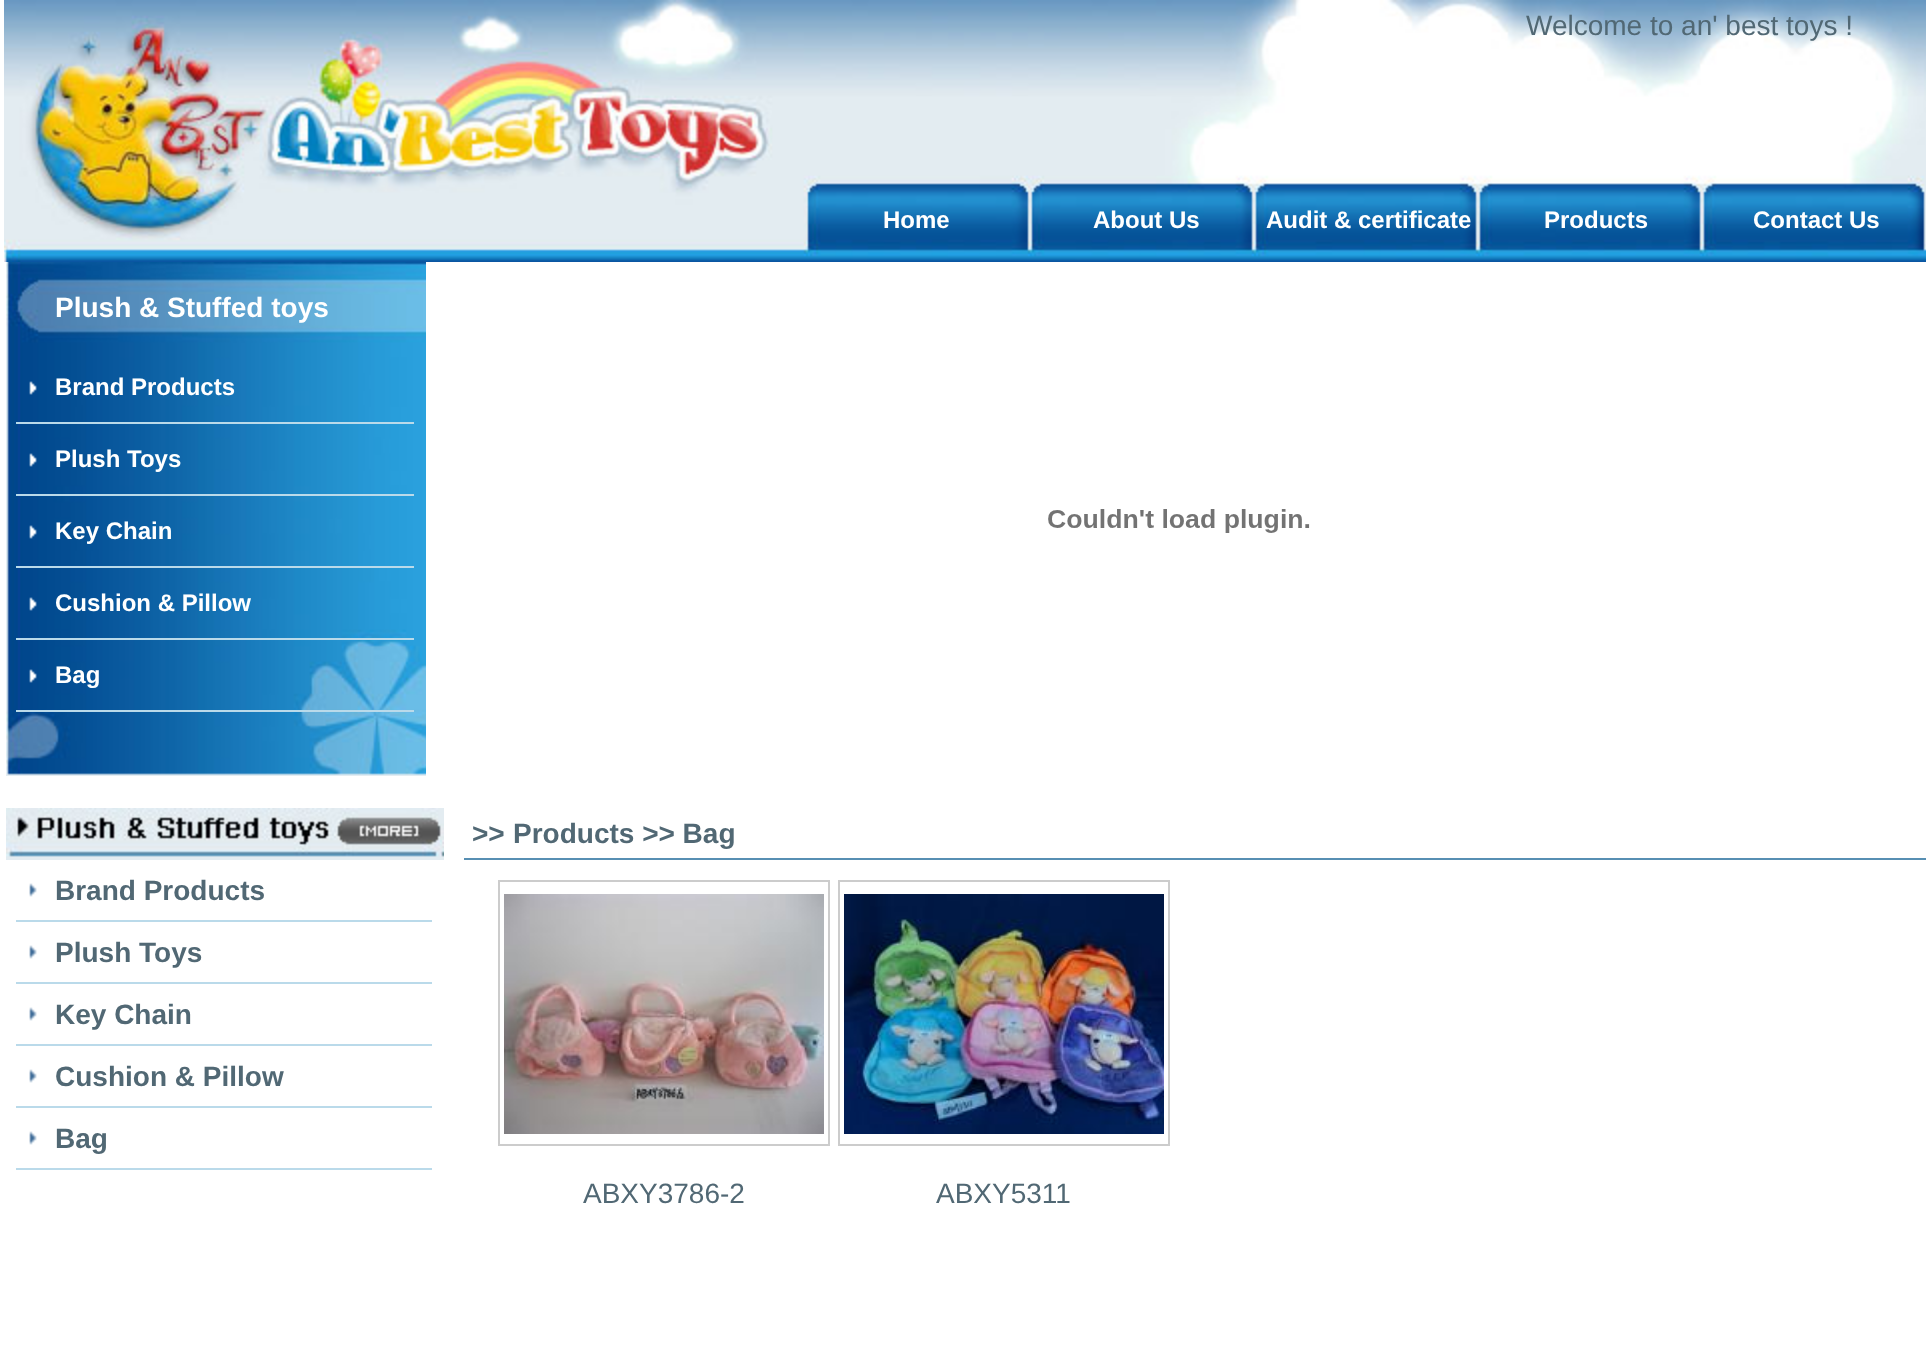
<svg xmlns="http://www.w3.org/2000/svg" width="1929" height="1356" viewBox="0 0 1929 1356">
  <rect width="100%" height="100%" fill="rgb(255,255,255)"/>
  <image x="4" y="0" width="1922" height="262" href="pic1.png"/>
  <text x="1526" y="35" font-family="Liberation Sans" font-size="28" fill="rgb(81,104,116)">Welcome to an' best toys !</text>
  <g font-family="Liberation Sans" font-size="24" font-weight="bold" fill="rgb(255,255,255)">
    <text x="883" y="228">Home</text>
    <text x="1093" y="228">About Us</text>
    <text x="1266" y="228">Audit &amp; certificate</text>
    <text x="1544" y="228">Products</text>
    <text x="1753" y="228">Contact Us</text>
  </g>
  <image x="6" y="262" width="420" height="514" href="pic2.png"/>
  <text x="55" y="317" font-family="Liberation Sans" font-size="28" font-weight="bold" fill="rgb(255,255,255)">Plush &amp; Stuffed toys</text>
  <image x="29" y="381" width="8" height="14" href="pic3.png"/>
  <text x="55" y="395" font-family="Liberation Sans" font-size="24" font-weight="bold" fill="rgb(255,255,255)">Brand Products</text>
  <rect x="16" y="422" width="398" height="2" fill="rgb(186,218,234)"/>
  <image x="29" y="453" width="8" height="14" href="pic3.png"/>
  <text x="55" y="467" font-family="Liberation Sans" font-size="24" font-weight="bold" fill="rgb(255,255,255)">Plush Toys</text>
  <rect x="16" y="494" width="398" height="2" fill="rgb(186,218,234)"/>
  <image x="29" y="525" width="8" height="14" href="pic3.png"/>
  <text x="55" y="539" font-family="Liberation Sans" font-size="24" font-weight="bold" fill="rgb(255,255,255)">Key Chain</text>
  <rect x="16" y="566" width="398" height="2" fill="rgb(186,218,234)"/>
  <image x="29" y="597" width="8" height="14" href="pic3.png"/>
  <text x="55" y="611" font-family="Liberation Sans" font-size="24" font-weight="bold" fill="rgb(255,255,255)">Cushion &amp; Pillow</text>
  <rect x="16" y="638" width="398" height="2" fill="rgb(186,218,234)"/>
  <image x="29" y="669" width="8" height="14" href="pic3.png"/>
  <text x="55" y="683" font-family="Liberation Sans" font-size="24" font-weight="bold" fill="rgb(255,255,255)">Bag</text>
  <rect x="16" y="710" width="398" height="2" fill="rgb(186,218,234)"/>
  <image x="1048" y="509" width="262" height="24" href="pic4.png"/>
  <image x="6" y="808" width="438" height="52" href="pic5.png"/>
  <image x="29" y="883" width="8" height="14" href="pic6.png"/>
  <text x="55" y="900" font-family="Liberation Sans" font-size="28" font-weight="bold" fill="rgb(81,104,116)">Brand Products</text>
  <rect x="16" y="920" width="416" height="2" fill="rgb(186,218,234)"/>
  <image x="29" y="945" width="8" height="14" href="pic6.png"/>
  <text x="55" y="962" font-family="Liberation Sans" font-size="28" font-weight="bold" fill="rgb(81,104,116)">Plush Toys</text>
  <rect x="16" y="982" width="416" height="2" fill="rgb(186,218,234)"/>
  <image x="29" y="1007" width="8" height="14" href="pic6.png"/>
  <text x="55" y="1024" font-family="Liberation Sans" font-size="28" font-weight="bold" fill="rgb(81,104,116)">Key Chain</text>
  <rect x="16" y="1044" width="416" height="2" fill="rgb(186,218,234)"/>
  <image x="29" y="1069" width="8" height="14" href="pic6.png"/>
  <text x="55" y="1086" font-family="Liberation Sans" font-size="28" font-weight="bold" fill="rgb(81,104,116)">Cushion &amp; Pillow</text>
  <rect x="16" y="1106" width="416" height="2" fill="rgb(186,218,234)"/>
  <image x="29" y="1131" width="8" height="14" href="pic6.png"/>
  <text x="55" y="1148" font-family="Liberation Sans" font-size="28" font-weight="bold" fill="rgb(81,104,116)">Bag</text>
  <rect x="16" y="1168" width="416" height="2" fill="rgb(186,218,234)"/>
  <g font-family="Liberation Sans" font-size="28" font-weight="bold" fill="rgb(81,104,116)">
    <text x="472" y="843">&gt;&gt;</text>
    <text x="513" y="843">Products &gt;&gt; Bag</text>
  </g>
  <rect x="464" y="858" width="1462" height="2" fill="rgb(87,143,179)"/>
  <rect x="499" y="881" width="330" height="264" fill="none" stroke="rgb(204,204,204)" stroke-width="2"/>
  <image x="504" y="894" width="320" height="240" href="pic7.png"/>
  <text x="583" y="1203" font-family="Liberation Sans" font-size="28" fill="rgb(81,104,116)">ABXY3786-2</text>
  <rect x="839" y="881" width="330" height="264" fill="none" stroke="rgb(204,204,204)" stroke-width="2"/>
  <image x="844" y="894" width="320" height="240" href="pic8.png"/>
  <text x="936" y="1203" font-family="Liberation Sans" font-size="28" fill="rgb(81,104,116)">ABXY5311</text>
</svg>
